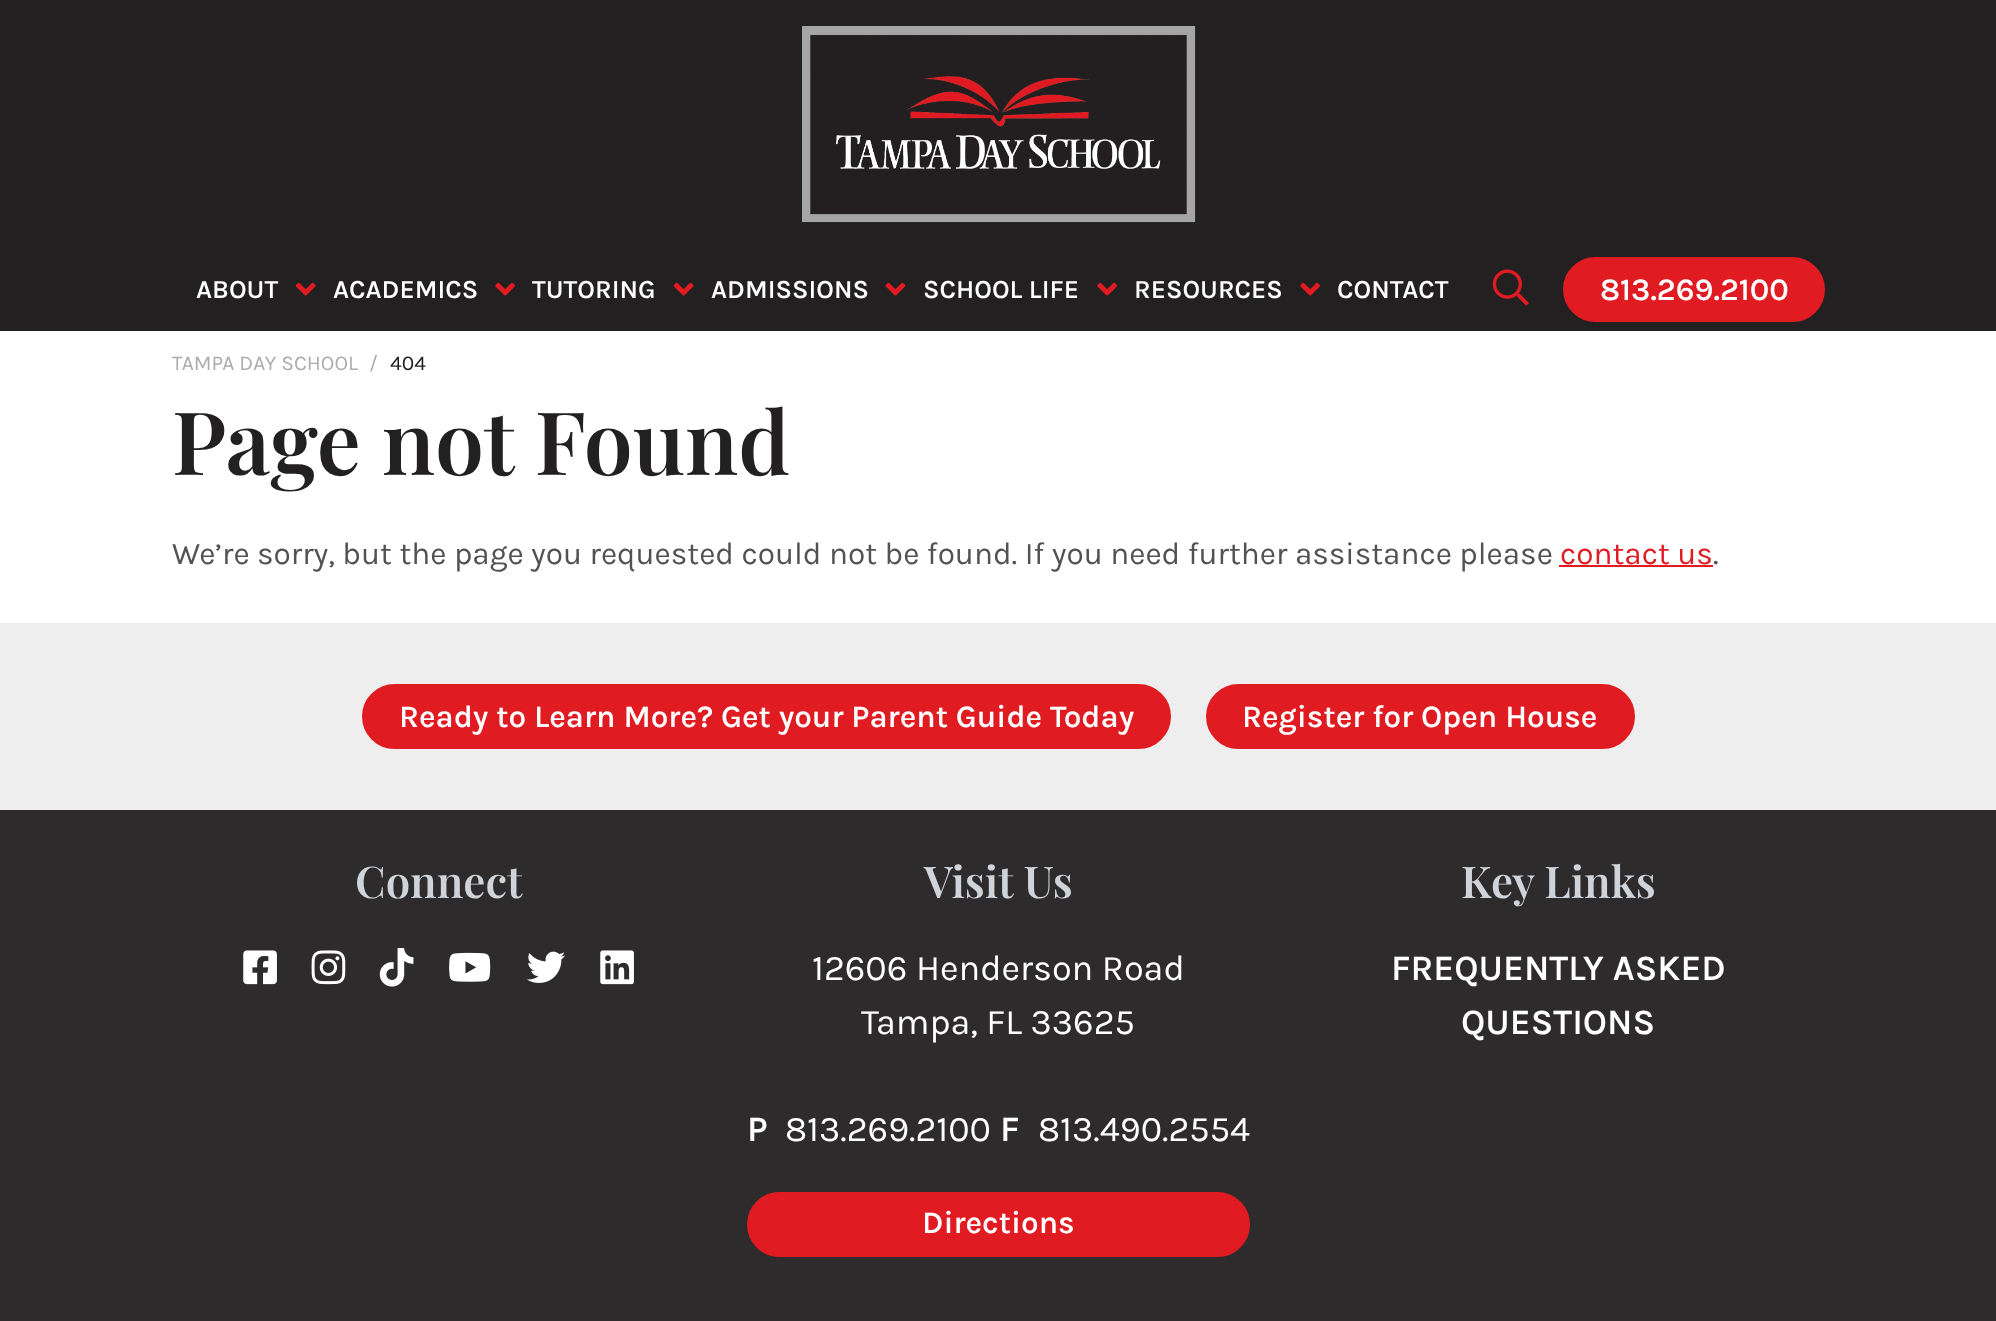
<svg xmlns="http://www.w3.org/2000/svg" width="1996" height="1321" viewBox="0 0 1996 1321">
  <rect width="100%" height="100%" fill="rgb(255,255,255)"/>
  <rect x="0" y="0" width="1996" height="331" fill="rgb(35,32,33)"/>
  <image x="802" y="26" width="394" height="197" href="pic1.png"/>
  <text x="196" y="298" font-family="Karla" font-size="26.25" font-weight="600" fill="rgb(255,255,255)">ABOUT</text>
  <image x="295" y="282" width="21" height="14" href="pic2.png"/>
  <text x="333" y="298" font-family="Karla" font-size="26.25" font-weight="600" fill="rgb(255,255,255)">ACADEMICS</text>
  <image x="495" y="282" width="20" height="14" href="pic3.png"/>
  <text x="532" y="298" font-family="Karla" font-size="26.25" font-weight="600" fill="rgb(255,255,255)">TUTORING</text>
  <image x="673" y="282" width="21" height="14" href="pic2.png"/>
  <text x="711" y="298" font-family="Karla" font-size="26.25" font-weight="600" fill="rgb(255,255,255)">ADMISSIONS</text>
  <image x="885" y="282" width="21" height="14" href="pic4.png"/>
  <text x="923" y="298" font-family="Karla" font-size="26.25" font-weight="600" fill="rgb(255,255,255)">SCHOOL LIFE</text>
  <image x="1097" y="282" width="20" height="14" href="pic3.png"/>
  <text x="1134" y="298" font-family="Karla" font-size="26.25" font-weight="600" fill="rgb(255,255,255)">RESOURCES</text>
  <image x="1300" y="282" width="20" height="14" href="pic3.png"/>
  <text x="1337" y="298" font-family="Karla" font-size="26.25" font-weight="600" fill="rgb(255,255,255)">CONTACT</text>
  <image x="1492" y="269" width="37" height="37" href="pic5.png"/>
  <rect x="1564" y="258" width="260" height="63" rx="31.5" fill="rgb(224,27,34)" stroke="rgb(224,27,34)" stroke-width="2"/>
  <text x="1600" y="300" font-family="Karla" font-size="31.5" font-weight="600" fill="rgb(255,255,255)">813.269.2100</text>
  <g font-family="Karla" font-size="21" fill="rgb(172,172,172)">
    <text x="172" y="370">TAMPA DAY SCHOOL</text>
    <text x="369" y="370">/</text>
  </g>
  <text x="390" y="370" font-family="Karla" font-size="21" fill="rgb(35,32,33)">404</text>
  <text x="172" y="475" font-family="Playfair Display" font-size="87.5" font-weight="600" fill="rgb(35,32,33)">Page not Found</text>
  <text x="172" y="564" font-family="Karla" font-size="31.5" fill="rgb(82,82,82)">We’re sorry, but the page you requested could not be found. If you need further assistance please</text>
  <text x="1560" y="564" font-family="Karla" font-size="31.5" fill="rgb(224,27,34)">contact us</text>
  <rect x="1559" y="565" width="154" height="2" fill="rgb(224,27,34)"/>
  <text x="1713" y="564" font-family="Karla" font-size="31.5" fill="rgb(82,82,82)">.</text>
  <rect x="0" y="623" width="1996" height="187" fill="rgb(238,238,238)"/>
  <rect x="363" y="685" width="807" height="63" rx="31.5" fill="rgb(224,27,34)" stroke="rgb(224,27,34)" stroke-width="2"/>
  <text x="399" y="727" font-family="Karla" font-size="31.5" font-weight="600" fill="rgb(255,255,255)">Ready to Learn More? Get your Parent Guide Today</text>
  <rect x="1207" y="685" width="427" height="63" rx="31.5" fill="rgb(224,27,34)" stroke="rgb(224,27,34)" stroke-width="2"/>
  <text x="1242" y="727" font-family="Karla" font-size="31.5" font-weight="600" fill="rgb(255,255,255)">Register for Open House</text>
  <rect x="0" y="810" width="1996" height="511" fill="rgb(46,43,44)"/>
  <text x="355" y="898" font-family="Playfair Display" font-size="43.75" font-weight="600" fill="rgb(206,212,218)">Connect</text>
  <image x="243" y="950" width="34" height="35" href="pic6.png"/>
  <image x="311" y="950" width="35" height="35" href="pic7.png"/>
  <image x="379" y="948" width="35" height="39" href="pic8.png"/>
  <image x="449" y="952" width="42" height="30" href="pic9.png"/>
  <image x="526" y="951" width="40" height="32" href="pic10.png"/>
  <image x="600" y="950" width="34" height="35" href="pic11.png"/>
  <text x="924" y="898" font-family="Playfair Display" font-size="43.75" font-weight="600" fill="rgb(206,212,218)">Visit Us</text>
  <g font-family="Karla" font-size="36" fill="rgb(255,255,255)">
    <text x="812" y="980">12606 Henderson Road</text>
    <text x="861" y="1034">Tampa, FL 33625</text>
  </g>
  <text x="747" y="1141" font-family="Karla" font-size="36" font-weight="600" fill="rgb(255,255,255)">P</text>
  <text x="785" y="1141" font-family="Karla" font-size="36" fill="rgb(255,255,255)">813.269.2100</text>
  <text x="1000" y="1141" font-family="Karla" font-size="36" font-weight="600" fill="rgb(255,255,255)">F</text>
  <text x="1038" y="1141" font-family="Karla" font-size="36" fill="rgb(255,255,255)">813.490.2554</text>
  <rect x="748" y="1193" width="501" height="63" rx="31.5" fill="rgb(224,27,34)" stroke="rgb(224,27,34)" stroke-width="2"/>
  <text x="922" y="1233" font-family="Karla" font-size="31.5" font-weight="600" fill="rgb(255,255,255)">Directions</text>
  <text x="1461" y="898" font-family="Playfair Display" font-size="43.75" font-weight="600" fill="rgb(206,212,218)">Key Links</text>
  <g font-family="Karla" font-size="36" font-weight="600" fill="rgb(255,255,255)">
    <text x="1391" y="980">FREQUENTLY ASKED</text>
    <text x="1461" y="1034">QUESTIONS</text>
  </g>
</svg>
